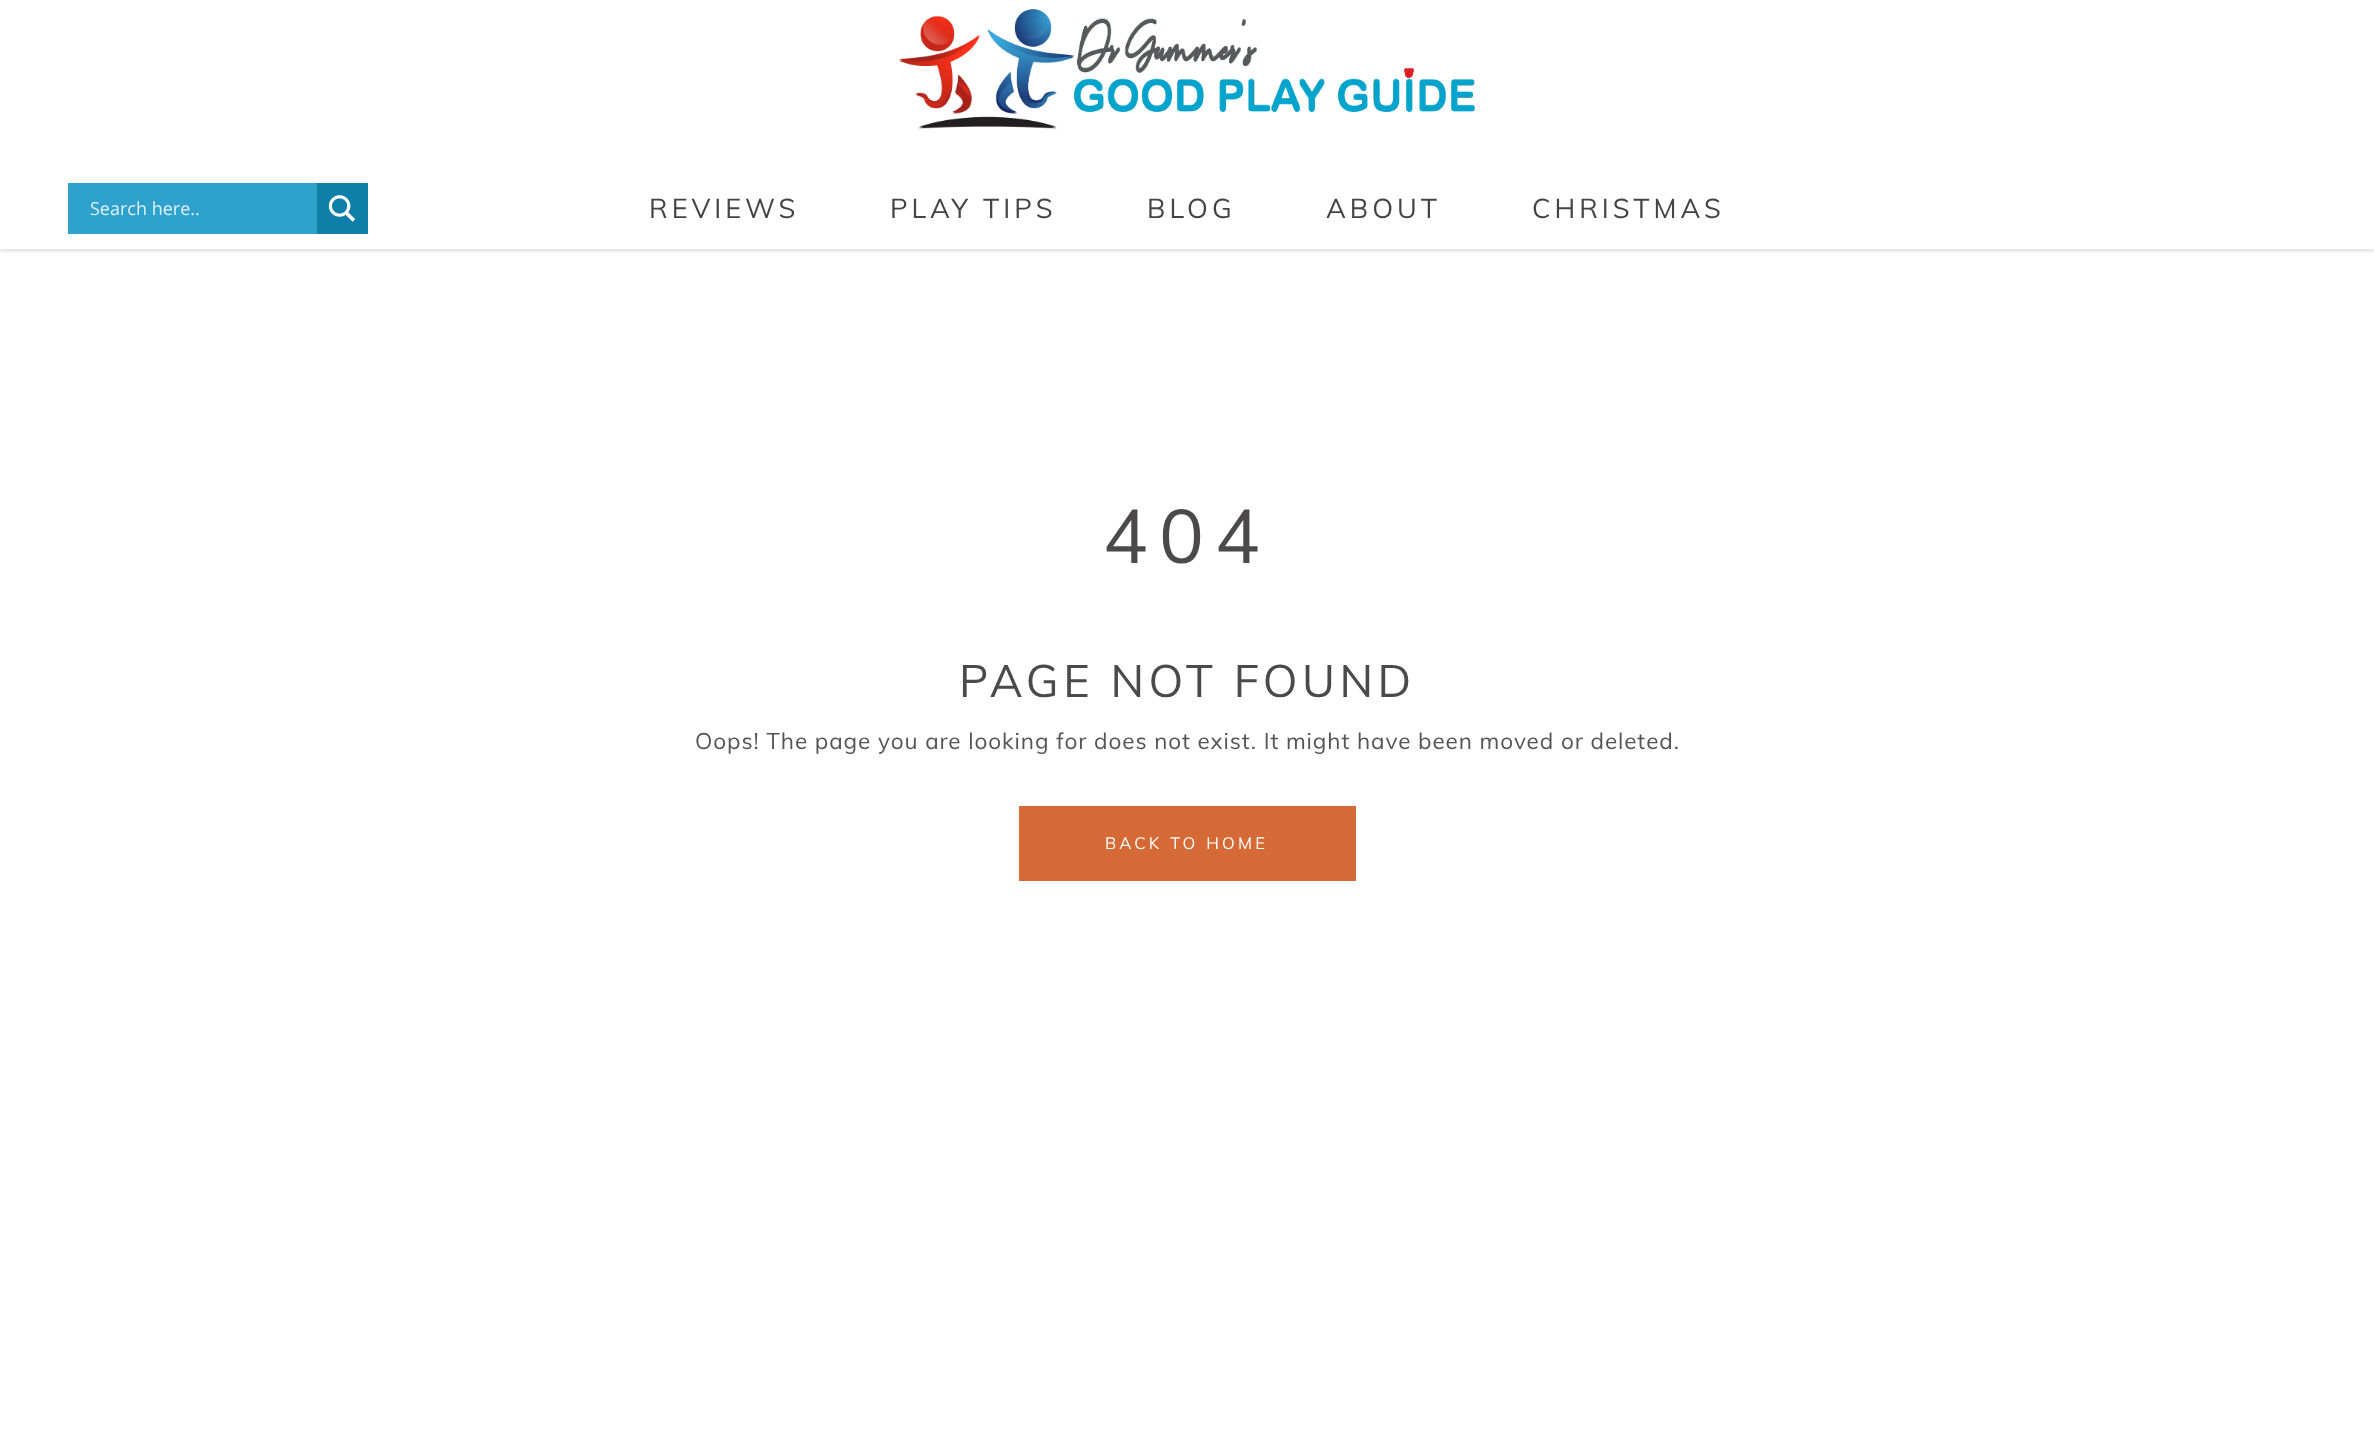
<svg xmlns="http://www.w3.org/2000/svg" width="2374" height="1452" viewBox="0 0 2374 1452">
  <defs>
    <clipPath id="clip1"><rect x="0" y="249" width="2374" height="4"/></clipPath>
  </defs>
  <rect width="100%" height="100%" fill="rgb(255,255,255)"/>
  <g clip-path="url(#clip1)">
    <rect x="0" y="170" width="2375" height="81" fill="rgba(0,0,0,0.15)" filter="blur(2px)"/>
  </g>
  <rect x="1" y="167" width="2373" height="1" fill="rgb(255,255,255)"/>
  <image x="899" y="9" width="577" height="120" href="pic1.png"/>
  <rect x="68" y="183" width="249" height="51" fill="rgb(46,162,204)"/>
  <text x="90" y="215" font-family="Open Sans" font-size="18" fill="rgb(224,241,247)">Search here..</text>
  <rect x="317" y="183" width="51" height="51" fill="rgb(14,127,168)"/>
  <image x="328" y="195" width="28" height="27" href="pic2.png"/>
  <g font-family="Muli" font-size="27" letter-spacing="4" fill="rgb(68,68,68)">
    <text x="649" y="218">REVIEWS</text>
    <text x="890" y="218">PLAY TIPS</text>
    <text x="1147" y="218">BLOG</text>
    <text x="1326" y="218">ABOUT</text>
    <text x="1532" y="218">CHRISTMAS</text>
  </g>
  <text x="1103" y="563" font-family="Muli" font-size="75" letter-spacing="11" fill="rgb(76,73,74)">404</text>
  <text x="959" y="697" font-family="Muli" font-size="45" letter-spacing="4.5" fill="rgb(76,73,74)">PAGE NOT FOUND</text>
  <text x="695" y="749" font-family="Muli" font-size="22.5" letter-spacing="0.9" fill="rgb(85,85,85)">Oops! The page you are looking for does not exist. It might have been moved or deleted.</text>
  <rect x="1019" y="806" width="337" height="75" fill="rgb(213,106,54)"/>
  <text x="1105" y="849" font-family="Muli" font-size="16.5" letter-spacing="3.25" fill="rgb(255,255,255)">BACK TO HOME</text>
</svg>
